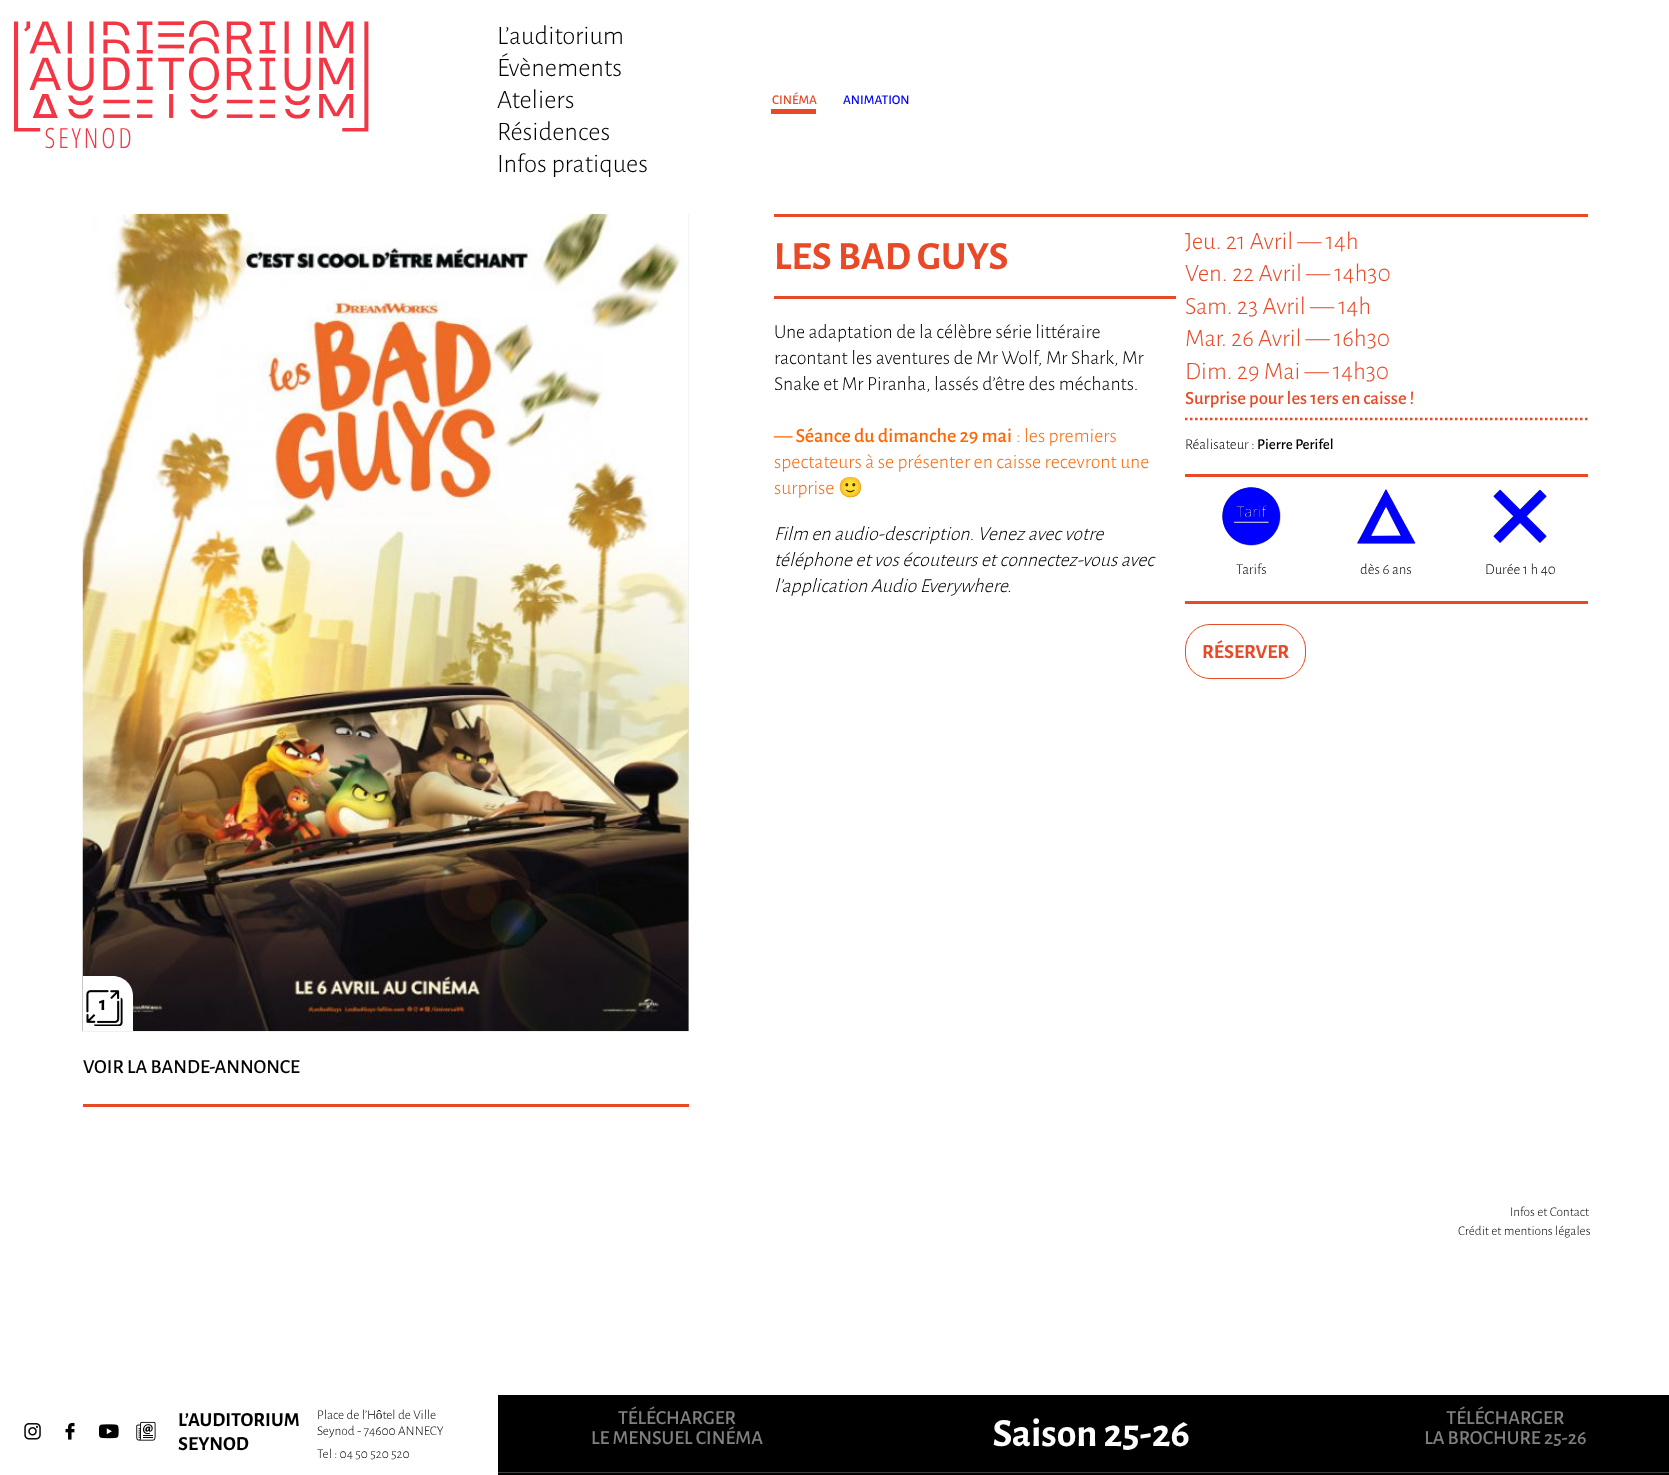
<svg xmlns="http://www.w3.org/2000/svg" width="1669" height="1475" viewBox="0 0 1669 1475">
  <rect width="100%" height="100%" fill="rgb(255,255,255)"/>
  <image x="14" y="20" width="355" height="129" href="pic1.png"/>
  <g font-family="Alegreya Sans" font-size="26.75" font-weight="300" fill="rgb(0,0,0)">
    <text>
      <tspan x="497" y="44">L’auditorium</tspan>
      <tspan x="497" y="76">Évènements</tspan>
      <tspan x="497" y="108">Ateliers</tspan>
      <tspan x="497" y="140">Résidences</tspan>
      <tspan x="497" y="172">Infos pratiques</tspan>
    </text>
  </g>
  <rect x="771" y="109" width="45" height="5" fill="rgb(232,73,38)"/>
  <text x="772" y="104" font-family="Alegreya Sans" font-size="13.4" font-weight="500" fill="rgb(232,73,38)">CINÉMA</text>
  <text x="843" y="104" font-family="Alegreya Sans" font-size="13.4" font-weight="500" fill="rgb(0,0,255)">ANIMATION</text>
  <rect x="774" y="214" width="814" height="3" fill="rgb(232,73,38)"/>
  <rect x="774" y="296" width="402" height="3" fill="rgb(232,73,38)"/>
  <text x="774" y="269" font-family="Alegreya Sans" font-size="40" font-weight="bold" fill="rgb(232,73,38)">LES BAD GUYS</text>
  <g font-family="Alegreya Sans" font-size="20" font-weight="300" fill="rgb(0,0,0)">
    <text>
      <tspan x="774" y="338">Une adaptation de la célèbre série littéraire</tspan>
      <tspan x="774" y="364">racontant les aventures de Mr Wolf, Mr Shark, Mr</tspan>
      <tspan x="774" y="390">Snake et Mr Piranha, lassés d’être des méchants.</tspan>
    </text>
  </g>
  <text x="774" y="442" font-family="Alegreya Sans" font-size="20" font-weight="500" fill="rgb(255,102,0)">— Séance du dimanche 29 mai</text>
  <g font-family="Alegreya Sans" font-size="20" font-weight="300" fill="rgb(255,102,0)">
    <text x="1016" y="442">: les premiers</text>
    <text>
      <tspan x="774" y="468">spectateurs à se présenter en caisse recevront une</tspan>
      <tspan x="774" y="494">surprise</tspan>
    </text>
  </g>
  <text x="838" y="494" font-family="Noto Color Emoji" font-size="20" fill="rgb(255,102,0)">🙂</text>
  <g font-family="Alegreya Sans" font-size="20" font-weight="300" font-style="italic" fill="rgb(0,0,0)">
    <text>
      <tspan x="774" y="540">Film en audio-description. Venez avec votre</tspan>
      <tspan x="774" y="566">téléphone et vos écouteurs et connectez-vous avec</tspan>
      <tspan x="774" y="592">l’application Audio Everywhere.</tspan>
    </text>
  </g>
  <rect x="688" y="214" width="1" height="817" fill="rgb(230,230,230)"/>
  <image x="82" y="213" width="607" height="819" href="pic2.png"/>
  <path d="M83 976H113C124 976 133 985 133 996V1031H83Z" fill="rgb(255,255,255)"/>
  <image x="86" y="990" width="37" height="36" href="pic3.png"/>
  <text x="99" y="1010" font-family="Alegreya Sans" font-size="20" font-weight="bold" fill="rgb(0,0,0)">1</text>
  <path d="M1185 419H1587.5" fill="none" stroke="rgb(232,73,38)" stroke-width="2.5" stroke-dasharray="2.5 2.5"/>
  <g font-family="Alegreya Sans" font-size="25" font-weight="300" fill="rgb(232,73,38)">
    <text>
      <tspan x="1185" y="249">Jeu. 21 Avril — 14h</tspan>
      <tspan x="1185" y="281">Ven. 22 Avril — 14h30</tspan>
      <tspan x="1185" y="314">Sam. 23 Avril — 14h</tspan>
      <tspan x="1185" y="346">Mar. 26 Avril — 16h30</tspan>
      <tspan x="1185" y="379">Dim. 29 Mai — 14h30</tspan>
    </text>
  </g>
  <text x="1185" y="404" font-family="Alegreya Sans" font-size="18.75" font-weight="500" fill="rgb(232,73,38)">Surprise pour les 1ers en caisse !</text>
  <text x="1185" y="449" font-family="Alegreya Sans" font-size="15" font-weight="300" fill="rgb(0,0,0)">Réalisateur :</text>
  <text x="1257" y="449" font-family="Alegreya Sans" font-size="15" font-weight="500" fill="rgb(0,0,0)">Pierre Perifel</text>
  <rect x="1185" y="474" width="403" height="3" fill="rgb(232,73,38)"/>
  <rect x="1185" y="601" width="403" height="3" fill="rgb(232,73,38)"/>
  <image x="1222" y="487" width="59" height="59" href="pic4.png"/>
  <text x="1236" y="574" font-family="Alegreya Sans" font-size="15" font-weight="300" fill="rgb(0,0,0)">Tarifs</text>
  <image x="1357" y="489" width="59" height="55" href="pic5.png"/>
  <text x="1360" y="574" font-family="Alegreya Sans" font-size="15" font-weight="300" fill="rgb(0,0,0)">dès 6 ans</text>
  <image x="1493" y="489" width="54" height="54" href="pic6.png"/>
  <text x="1485" y="574" font-family="Alegreya Sans" font-size="15" font-weight="300" fill="rgb(0,0,0)">Durée 1 h 40</text>
  <rect x="1185.5" y="624.5" width="120" height="54" rx="24.5" fill="none" stroke="rgb(232,73,38)"/>
  <text x="1202" y="658" font-family="Alegreya Sans" font-size="20" font-weight="bold" fill="rgb(232,73,38)">RÉSERVER</text>
  <rect x="83" y="1104" width="606" height="3" fill="rgb(232,73,38)"/>
  <text x="83" y="1073" font-family="Alegreya Sans" font-size="20" font-weight="500" fill="rgb(0,0,0)">VOIR LA BANDE-ANNONCE</text>
  <g font-family="Alegreya Sans" font-size="13.4" font-weight="300" fill="rgb(0,0,0)">
    <text x="1510" y="1216">Infos et Contact</text>
    <text x="1458" y="1235">Crédit et mentions légales</text>
  </g>
  <image x="24" y="1423" width="17" height="17" href="pic7.png"/>
  <image x="65" y="1422" width="10" height="18" href="pic8.png"/>
  <image x="99" y="1424" width="20" height="15" href="pic9.png"/>
  <image x="136" y="1421" width="20" height="20" href="pic10.png"/>
  <g font-family="Alegreya Sans" font-size="20" font-weight="bold" fill="rgb(0,0,0)">
    <text>
      <tspan x="178" y="1426">L’AUDITORIUM</tspan>
      <tspan x="178" y="1450">SEYNOD</tspan>
    </text>
  </g>
  <g font-family="Alegreya Sans" font-size="13.4" font-weight="300" fill="rgb(0,0,0)">
    <text>
      <tspan x="317" y="1419">Place de l’Hôtel de Ville</tspan>
      <tspan x="317" y="1435">Seynod - 74600 ANNECY</tspan>
      <tspan x="317" y="1458">Tel : 04 50 520 520</tspan>
    </text>
  </g>
  <rect x="498" y="1395" width="1171" height="80" fill="rgb(0,0,0)"/>
  <image x="498" y="1406" width="1171" height="67" href="pic11.png"/>
</svg>
